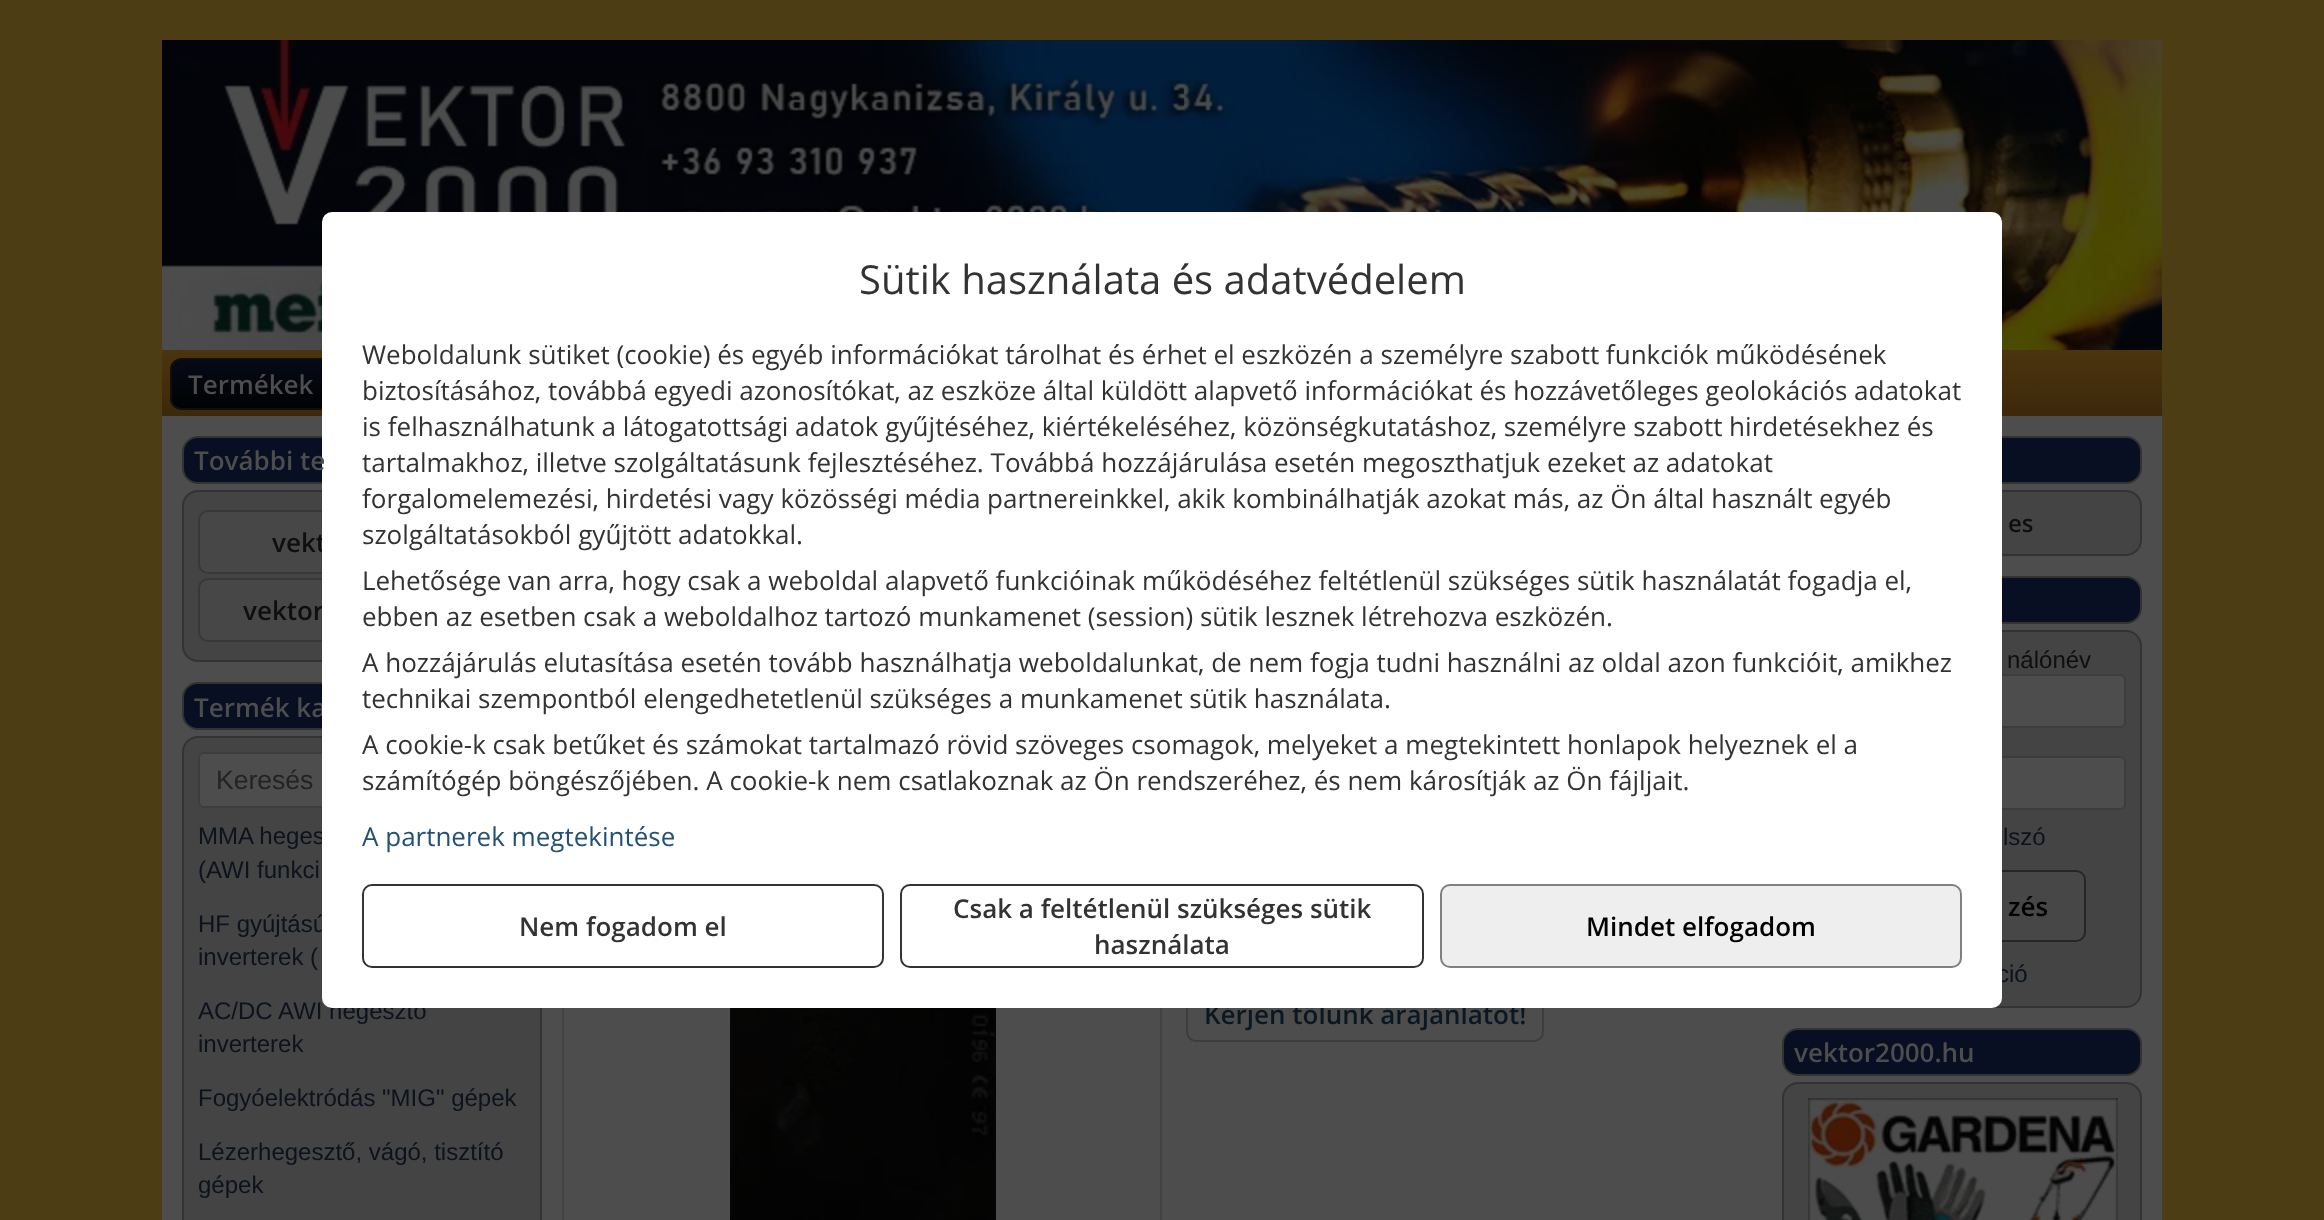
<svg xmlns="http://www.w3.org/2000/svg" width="2324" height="1220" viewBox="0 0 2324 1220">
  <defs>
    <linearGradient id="g1" gradientUnits="userSpaceOnUse" x1="1162" y1="350" x2="1162" y2="416"><stop offset="0" stop-color="rgb(75,52,15)"/><stop offset="1" stop-color="rgb(60,40,10)"/></linearGradient>
    <clipPath id="clip1"><rect x="170" y="358" width="296" height="52" rx="12"/></clipPath>
    <linearGradient id="g2" gradientUnits="userSpaceOnUse" x1="318" y1="360" x2="318" y2="408"><stop offset="0" stop-color="rgb(5,10,23)"/><stop offset="1" stop-color="rgb(1,2,3)"/></linearGradient>
  </defs>
  <rect width="100%" height="100%" fill="rgb(76,61,20)"/>
  <rect x="162" y="416" width="2000" height="804" fill="rgb(77,77,77)"/>
  <image x="162" y="40" width="2000" height="310" href="pic1.png"/>
  <rect x="162" y="350" width="2000" height="66" fill="url(#g1)"/>
  <g clip-path="url(#clip1)">
    <rect x="170" y="360" width="152" height="48" fill="url(#g2)"/>
  </g>
  <rect x="171" y="359" width="294" height="50" rx="11" fill="none" stroke="rgb(15,15,15)" stroke-width="2"/>
  <rect x="183" y="437" width="358" height="46" rx="15" fill="rgb(8,15,35)" stroke="rgb(51,51,51)" stroke-width="2"/>
  <rect x="183" y="491" width="358" height="170" rx="15" fill="rgb(68,68,68)" stroke="rgb(51,51,51)" stroke-width="2"/>
  <rect x="199" y="511" width="326" height="62" rx="9" fill="rgb(71,71,71)" stroke="rgb(56,56,56)" stroke-width="2"/>
  <text x="272" y="552" font-family="Open Sans" font-size="26" font-weight="600" fill="rgb(15,15,15)">vekt</text>
  <rect x="199" y="579" width="326" height="62" rx="9" fill="rgb(71,71,71)" stroke="rgb(56,56,56)" stroke-width="2"/>
  <text x="243" y="620" font-family="Open Sans" font-size="26" font-weight="600" fill="rgb(15,15,15)">vektor</text>
  <rect x="183" y="683" width="358" height="46" rx="15" fill="rgb(8,15,35)" stroke="rgb(51,51,51)" stroke-width="2"/>
  <text x="194" y="717" font-family="Open Sans" font-size="26" font-weight="600" fill="rgb(77,77,77)">Termék ka</text>
  <rect x="183" y="737" width="358" height="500" rx="15" fill="rgb(68,68,68)" stroke="rgb(51,51,51)" stroke-width="2"/>
  <rect x="199" y="753" width="310" height="54" rx="5" fill="rgb(77,77,77)" stroke="rgb(61,61,61)" stroke-width="2"/>
  <g font-family="Liberation Sans" font-size="24" fill="rgb(12,19,29)">
    <text x="198" y="844">MMA heges</text>
    <text x="198" y="932">HF gyújtású</text>
    <text x="198" y="1019">AC/DC AWI hegesztő</text>
  </g>
  <rect x="563" y="635" width="598" height="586" fill="none" stroke="rgb(66,66,66)" stroke-width="2"/>
  <rect x="1187" y="987" width="356" height="54" rx="9" fill="none" stroke="rgb(58,62,65)" stroke-width="2"/>
  <text x="1204" y="1024" font-family="Open Sans" font-size="26" font-weight="600" fill="rgb(11,24,35)">Kérjen tőlünk árajánlatot!</text>
  <rect x="1783" y="437" width="358" height="46" rx="15" fill="rgb(8,15,35)" stroke="rgb(51,51,51)" stroke-width="2"/>
  <rect x="1783" y="491" width="358" height="64" rx="15" fill="rgb(68,68,68)" stroke="rgb(51,51,51)" stroke-width="2"/>
  <rect x="1783" y="577" width="358" height="46" rx="15" fill="rgb(8,15,35)" stroke="rgb(51,51,51)" stroke-width="2"/>
  <rect x="1783" y="631" width="358" height="376" rx="15" fill="rgb(68,68,68)" stroke="rgb(51,51,51)" stroke-width="2"/>
  <rect x="1799" y="675" width="326" height="52" rx="5" fill="rgb(77,77,77)" stroke="rgb(61,61,61)" stroke-width="2"/>
  <rect x="1799" y="757" width="326" height="52" rx="5" fill="rgb(77,77,77)" stroke="rgb(61,61,61)" stroke-width="2"/>
  <rect x="1839" y="871" width="246" height="70" rx="9" fill="rgb(71,71,71)" stroke="rgb(38,38,38)" stroke-width="2"/>
  <text x="1997" y="982" font-family="Liberation Sans" font-size="24" fill="rgb(12,19,29)">ció</text>
  <rect x="322" y="212" width="1680" height="796" rx="10" fill="rgb(255,255,255)"/>
  <text x="859" y="294" font-family="Open Sans" font-size="40" fill="rgb(51,51,51)">Sütik használata és adatvédelem</text>
  <g font-family="Open Sans" font-size="26" fill="rgb(51,51,51)">
    <text>
      <tspan x="362" y="364">Weboldalunk sütiket (cookie) és egyéb információkat tárolhat és érhet el eszközén a személyre szabott funkciók működésének</tspan>
      <tspan x="362" y="400">biztosításához, továbbá egyedi azonosítókat, az eszköze által küldött alapvető információkat és hozzávetőleges geolokációs adatokat</tspan>
      <tspan x="362" y="436">is felhasználhatunk a látogatottsági adatok gyűjtéséhez, kiértékeléséhez, közönségkutatáshoz, személyre szabott hirdetésekhez és</tspan>
      <tspan x="362" y="472">tartalmakhoz, illetve szolgáltatásunk fejlesztéséhez. Továbbá hozzájárulása esetén megoszthatjuk ezeket az adatokat</tspan>
      <tspan x="362" y="508">forgalomelemezési, hirdetési vagy közösségi média partnereinkkel, akik kombinálhatják azokat más, az Ön által használt egyéb</tspan>
      <tspan x="362" y="544">szolgáltatásokból gyűjtött adatokkal.</tspan>
      <tspan x="362" y="590">Lehetősége van arra, hogy csak a weboldal alapvető funkcióinak működéséhez feltétlenül szükséges sütik használatát fogadja el,</tspan>
      <tspan x="362" y="626">ebben az esetben csak a weboldalhoz tartozó munkamenet (session) sütik lesznek létrehozva eszközén.</tspan>
      <tspan x="362" y="672">A hozzájárulás elutasítása esetén tovább használhatja weboldalunkat, de nem fogja tudni használni az oldal azon funkcióit, amikhez</tspan>
      <tspan x="362" y="708">technikai szempontból elengedhetetlenül szükséges a munkamenet sütik használata.</tspan>
      <tspan x="362" y="754">A cookie-k csak betűket és számokat tartalmazó rövid szöveges csomagok, melyeket a megtekintett honlapok helyeznek el a</tspan>
      <tspan x="362" y="790">számítógép böngészőjében. A cookie-k nem csatlakoznak az Ön rendszeréhez, és nem károsítják az Ön fájljait.</tspan>
    </text>
  </g>
  <text x="362" y="846" font-family="Open Sans" font-size="26" fill="rgb(36,80,118)">A partnerek megtekintése</text>
  <rect x="363" y="885" width="520" height="82" rx="9" fill="none" stroke="rgb(51,51,51)" stroke-width="2"/>
  <text x="519" y="936" font-family="Open Sans" font-size="26" font-weight="600" fill="rgb(51,51,51)">Nem fogadom el</text>
  <rect x="901" y="885" width="522" height="82" rx="9" fill="none" stroke="rgb(51,51,51)" stroke-width="2"/>
  <g font-family="Open Sans" font-size="26" font-weight="600" fill="rgb(51,51,51)">
    <text x="953" y="918">Csak a feltétlenül szükséges sütik</text>
    <text x="1094" y="954">használata</text>
  </g>
  <rect x="1441" y="885" width="520" height="82" rx="9" fill="rgb(238,238,238)" stroke="rgb(128,128,128)" stroke-width="2"/>
  <text x="1586" y="936" font-family="Open Sans" font-size="26" font-weight="600" fill="rgb(0,0,0)">Mindet elfogadom</text>
  <g font-family="Open Sans" font-size="26" font-weight="600" fill="rgb(77,77,77)">
    <text x="188" y="394">Termékek</text>
    <text x="194" y="470">További te</text>
  </g>
  <text x="216" y="789" font-family="Liberation Sans" font-size="26.5" fill="rgb(35,35,35)">Keresés</text>
  <g font-family="Liberation Sans" font-size="24" fill="rgb(12,19,29)">
    <text x="198" y="878">(AWI funkci</text>
    <text x="198" y="965">inverterek (</text>
    <text x="198" y="1052">inverterek</text>
    <text x="198" y="1106">Fogyóelektródás "MIG" gépek</text>
    <text>
      <tspan x="198" y="1160">Lézerhegesztő, vágó, tisztító</tspan>
      <tspan x="198" y="1193">gépek</tspan>
    </text>
  </g>
  <image x="730" y="1008" width="266" height="212" href="pic2.png"/>
  <text x="2008" y="532" font-family="Open Sans" font-size="24" font-weight="600" fill="rgb(15,15,15)">es</text>
  <text x="2007" y="668" font-family="Liberation Sans" font-size="24" fill="rgb(15,15,15)">nálónév</text>
  <text x="2003" y="845" font-family="Liberation Sans" font-size="24" fill="rgb(12,19,29)">lszó</text>
  <text x="2008" y="916" font-family="Open Sans" font-size="26" font-weight="600" fill="rgb(0,0,0)">zés</text>
  <rect x="1783" y="1029" width="358" height="46" rx="15" fill="rgb(8,15,35)" stroke="rgb(51,51,51)" stroke-width="2"/>
  <text x="1794" y="1062" font-family="Open Sans" font-size="26" font-weight="600" fill="rgb(77,77,77)">vektor2000.hu</text>
  <rect x="1783" y="1083" width="358" height="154" rx="15" fill="rgb(68,68,68)" stroke="rgb(51,51,51)" stroke-width="2"/>
  <image x="1808" y="1098" width="310" height="122" href="pic3.png"/>
</svg>
